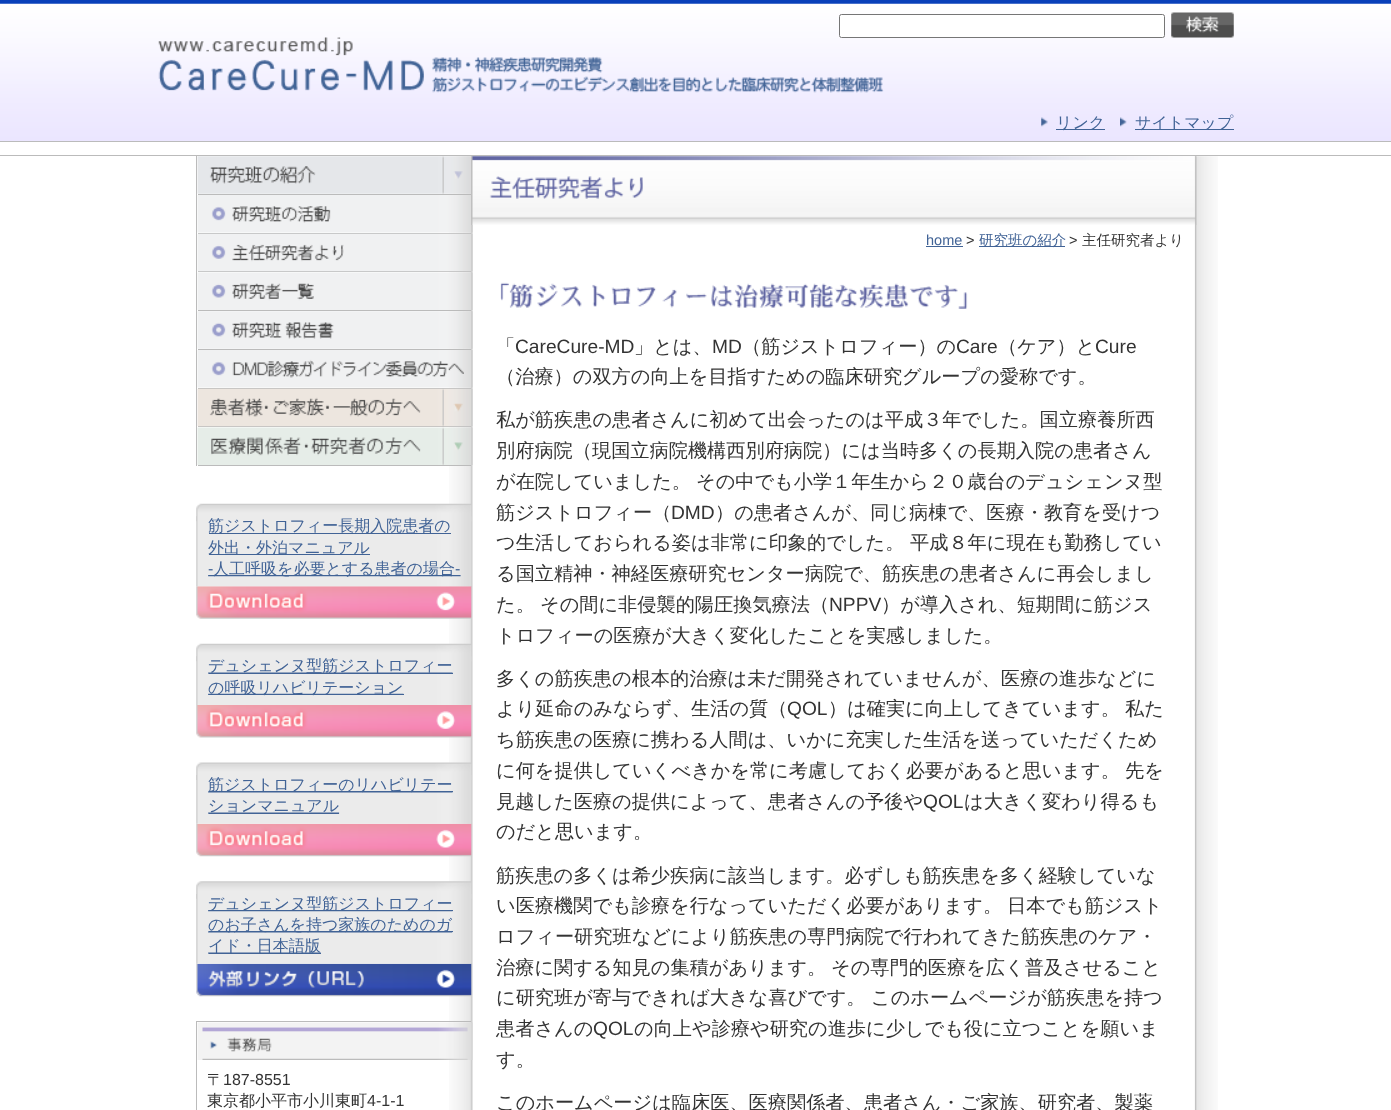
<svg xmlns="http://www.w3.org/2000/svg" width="1391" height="1110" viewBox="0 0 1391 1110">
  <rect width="100%" height="100%" fill="rgb(255,255,255)"/>
  <image x="0" y="0" width="1391" height="141" href="pic1.png"/>
  <rect x="839.5" y="14.5" width="325" height="23" rx="2" fill="rgb(255,255,255)" stroke="rgb(118,118,118)"/>
  <image x="1171" y="12" width="63" height="26" href="pic2.png"/>
  <image x="158" y="37" width="726" height="56" href="pic3.png"/>
  <image x="1041" y="117" width="7" height="10" href="pic4.png"/>
  <rect x="1056" y="129" width="49" height="1" fill="rgb(65,99,150)"/>
  <text x="1056" y="128" font-family="WenQuanYi Zen Hei" font-size="16" font-weight="500" fill="rgb(65,99,150)">リンク</text>
  <image x="1120" y="117" width="7" height="10" href="pic5.png"/>
  <rect x="1135" y="129" width="99" height="1" fill="rgb(65,99,150)"/>
  <text x="1135" y="128" font-family="WenQuanYi Zen Hei" font-size="16" font-weight="500" fill="rgb(65,99,150)">サイトマップ</text>
  <rect x="0" y="141" width="1391" height="1" fill="rgb(187,187,187)"/>
  <rect x="0" y="155" width="1391" height="1" fill="rgb(187,187,187)"/>
  <image x="449" y="156" width="769" height="954" href="pic6.png"/>
  <rect x="196" y="156" width="1" height="310" fill="rgb(187,187,187)"/>
  <rect x="198" y="194" width="273" height="1" fill="rgb(187,187,187)"/>
  <image x="197" y="156" width="276" height="38" href="pic7.png"/>
  <rect x="198" y="233" width="273" height="1" fill="rgb(187,187,187)"/>
  <image x="197" y="195" width="276" height="38" href="pic8.png"/>
  <rect x="198" y="271" width="273" height="1" fill="rgb(187,187,187)"/>
  <image x="197" y="233" width="276" height="39" href="pic9.png"/>
  <rect x="198" y="310" width="273" height="1" fill="rgb(187,187,187)"/>
  <image x="197" y="272" width="276" height="38" href="pic10.png"/>
  <rect x="198" y="349" width="273" height="1" fill="rgb(187,187,187)"/>
  <image x="197" y="311" width="276" height="38" href="pic11.png"/>
  <rect x="198" y="388" width="273" height="1" fill="rgb(187,187,187)"/>
  <image x="197" y="350" width="276" height="38" href="pic12.png"/>
  <rect x="198" y="426" width="273" height="1" fill="rgb(187,187,187)"/>
  <image x="197" y="388" width="276" height="39" href="pic13.png"/>
  <rect x="198" y="465" width="273" height="1" fill="rgb(187,187,187)"/>
  <image x="197" y="427" width="276" height="38" href="pic14.png"/>
  <image x="196" y="586" width="276" height="33" href="pic15.png"/>
  <image x="196" y="503" width="276" height="19" href="pic16.png"/>
  <image x="196" y="516" width="276" height="71" href="pic17.png"/>
  <rect x="209" y="533" width="242" height="1" fill="rgb(65,99,150)"/>
  <text x="208" y="531" font-family="WenQuanYi Zen Hei" font-size="16" font-weight="500" fill="rgb(65,99,150)">筋ジストロフィー長期入院患者の</text>
  <rect x="209" y="554" width="161" height="1" fill="rgb(65,99,150)"/>
  <text x="208" y="553" font-family="WenQuanYi Zen Hei" font-size="16" font-weight="500" fill="rgb(65,99,150)">外出・外泊マニュアル</text>
  <text x="208" y="574" font-family="Liberation Sans" font-size="16" fill="rgb(65,99,150)">-</text>
  <text x="213" y="574" font-family="WenQuanYi Zen Hei" font-size="16" font-weight="500" fill="rgb(65,99,150)">人工呼吸を必要とする患者の場合</text>
  <text x="455" y="574" font-family="Liberation Sans" font-size="16" fill="rgb(65,99,150)">-</text>
  <image x="196" y="705" width="276" height="33" href="pic18.png"/>
  <image x="196" y="643" width="276" height="19" href="pic16.png"/>
  <image x="196" y="656" width="276" height="49" href="pic19.png"/>
  <rect x="209" y="673" width="244" height="1" fill="rgb(65,99,150)"/>
  <g font-family="WenQuanYi Zen Hei" font-size="16" font-weight="500" fill="rgb(65,99,150)">
    <text>
      <tspan x="208" y="671">デュシェンヌ型筋ジストロフィー</tspan>
      <tspan x="208" y="693">の呼吸リハビリテーション</tspan>
    </text>
  </g>
  <rect x="403" y="694" width="1" height="1" fill="rgb(65,99,150)"/>
  <image x="196" y="823" width="276" height="34" href="pic20.png"/>
  <image x="196" y="762" width="276" height="18" href="pic21.png"/>
  <image x="196" y="775" width="276" height="49" href="pic22.png"/>
  <rect x="209" y="791" width="244" height="1" fill="rgb(65,99,150)"/>
  <g font-family="WenQuanYi Zen Hei" font-size="16" font-weight="500" fill="rgb(65,99,150)">
    <text>
      <tspan x="208" y="790">筋ジストロフィーのリハビリテー</tspan>
      <tspan x="208" y="811">ションマニュアル</tspan>
    </text>
  </g>
  <rect x="209" y="813" width="130" height="1" fill="rgb(65,99,150)"/>
  <image x="196" y="963" width="276" height="34" href="pic23.png"/>
  <image x="196" y="881" width="276" height="18" href="pic24.png"/>
  <image x="196" y="894" width="276" height="70" href="pic25.png"/>
  <text x="208" y="909" font-family="WenQuanYi Zen Hei" font-size="16" font-weight="500" fill="rgb(65,99,150)">デュシェンヌ型筋ジストロフィー</text>
  <rect x="452" y="910" width="1" height="1" fill="rgb(65,99,150)"/>
  <rect x="209" y="931" width="244" height="1" fill="rgb(65,99,150)"/>
  <text x="208" y="930" font-family="WenQuanYi Zen Hei" font-size="16" font-weight="500" fill="rgb(65,99,150)">のお子さんを持つ家族のためのガ</text>
  <rect x="209" y="953" width="112" height="1" fill="rgb(65,99,150)"/>
  <text x="208" y="951" font-family="WenQuanYi Zen Hei" font-size="16" font-weight="500" fill="rgb(65,99,150)">イド・日本語版</text>
  <rect x="196" y="1021" width="275" height="1" fill="rgb(187,187,187)"/>
  <rect x="196" y="1021" width="1" height="89" fill="rgb(187,187,187)"/>
  <image x="197" y="1022" width="276" height="38" href="pic26.png"/>
  <text x="207" y="1085" font-family="WenQuanYi Zen Hei" font-size="16" font-weight="500" fill="rgb(51,51,51)">〒</text>
  <text x="223" y="1085" font-family="Liberation Sans" font-size="16" fill="rgb(51,51,51)">187-8551</text>
  <text x="207" y="1106" font-family="WenQuanYi Zen Hei" font-size="16" font-weight="500" fill="rgb(51,51,51)">東京都小平市小川東町</text>
  <text x="367" y="1106" font-family="Liberation Sans" font-size="16" fill="rgb(51,51,51)">4-1-1</text>
  <image x="471" y="156" width="726" height="69" href="pic27.png"/>
  <text x="926" y="245" font-family="Liberation Sans" font-size="14.5" fill="rgb(65,99,150)">home</text>
  <rect x="926" y="246" width="37" height="1" fill="rgb(65,99,150)"/>
  <text x="966" y="245" font-family="Liberation Sans" font-size="14.5" fill="rgb(51,51,51)">&gt;</text>
  <rect x="979" y="246" width="86" height="1" fill="rgb(65,99,150)"/>
  <text x="979" y="245" font-family="WenQuanYi Zen Hei" font-size="14.5" font-weight="500" fill="rgb(65,99,150)">研究班の紹介</text>
  <text x="1069" y="245" font-family="Liberation Sans" font-size="14.5" fill="rgb(51,51,51)">&gt;</text>
  <text x="1082" y="245" font-family="WenQuanYi Zen Hei" font-size="14.5" font-weight="500" fill="rgb(51,51,51)">主任研究者より</text>
  <image x="500" y="282" width="468" height="27" href="pic28.png"/>
  <text x="496" y="353" font-family="WenQuanYi Zen Hei" font-size="19.2" font-weight="500" fill="rgb(51,51,51)">「</text>
  <text x="515" y="353" font-family="Liberation Sans" font-size="19.2" fill="rgb(51,51,51)">CareCure-MD</text>
  <text x="634" y="353" font-family="WenQuanYi Zen Hei" font-size="19.2" font-weight="500" fill="rgb(51,51,51)">」とは、</text>
  <text x="712" y="353" font-family="Liberation Sans" font-size="19.2" fill="rgb(51,51,51)">MD</text>
  <text x="742" y="353" font-family="WenQuanYi Zen Hei" font-size="19.2" font-weight="500" fill="rgb(51,51,51)">（筋ジストロフィー）の</text>
  <text x="956" y="353" font-family="Liberation Sans" font-size="19.2" fill="rgb(51,51,51)">Care</text>
  <text x="998" y="353" font-family="WenQuanYi Zen Hei" font-size="19.2" font-weight="500" fill="rgb(51,51,51)">（ケア）と</text>
  <text x="1095" y="353" font-family="Liberation Sans" font-size="19.2" fill="rgb(51,51,51)">Cure</text>
  <g font-family="WenQuanYi Zen Hei" font-size="19.2" font-weight="500" fill="rgb(51,51,51)">
    <text x="496" y="383">（治療）の双方の向上を目指すための臨床研究グループの愛称です。</text>
    <text>
      <tspan x="496" y="426">私が筋疾患の患者さんに初めて出会ったのは平成３年でした。国立療養所西</tspan>
      <tspan x="496" y="457">別府病院（現国立病院機構西別府病院）には当時多くの長期入院の患者さん</tspan>
      <tspan x="496" y="488">が在院していました。</tspan>
    </text>
    <text x="696" y="488">その中でも小学１年生から２０歳台のデュシェンヌ型</text>
    <text x="496" y="519">筋ジストロフィー（</text>
  </g>
  <text x="671" y="519" font-family="Liberation Sans" font-size="19.2" fill="rgb(51,51,51)">DMD</text>
  <g font-family="WenQuanYi Zen Hei" font-size="19.2" font-weight="500" fill="rgb(51,51,51)">
    <text x="715" y="519">）の患者さんが、同じ病棟で、医療・教育を受けつ</text>
    <text x="496" y="549">つ生活しておられる姿は非常に印象的でした。</text>
    <text x="910" y="549">平成８年に現在も勤務してい</text>
    <text>
      <tspan x="496" y="580">る国立精神・神経医療研究センター病院で、筋疾患の患者さんに再会しまし</tspan>
      <tspan x="496" y="611">た。</tspan>
    </text>
    <text x="540" y="611">その間に非侵襲的陽圧換気療法（</text>
  </g>
  <text x="829" y="611" font-family="Liberation Sans" font-size="19.2" fill="rgb(51,51,51)">NPPV</text>
  <g font-family="WenQuanYi Zen Hei" font-size="19.2" font-weight="500" fill="rgb(51,51,51)">
    <text x="881" y="611">）が導入され、短期間に筋ジス</text>
    <text x="496" y="642">トロフィーの医療が大きく変化したことを実感しました。</text>
    <text>
      <tspan x="496" y="685">多くの筋疾患の根本的治療は未だ開発されていませんが、医療の進歩などに</tspan>
      <tspan x="496" y="715">より延命のみならず、生活の質（</tspan>
    </text>
  </g>
  <text x="787" y="715" font-family="Liberation Sans" font-size="19.2" fill="rgb(51,51,51)">QOL</text>
  <g font-family="WenQuanYi Zen Hei" font-size="19.2" font-weight="500" fill="rgb(51,51,51)">
    <text x="828" y="715">）は確実に向上してきています。</text>
    <text x="1125" y="715">私た</text>
    <text>
      <tspan x="496" y="746">ち筋疾患の医療に携わる人間は、いかに充実した生活を送っていただくため</tspan>
      <tspan x="496" y="777">に何を提供していくべきかを常に考慮しておく必要があると思います。</tspan>
    </text>
    <text x="1125" y="777">先を</text>
    <text x="496" y="808">見越した医療の提供によって、患者さんの予後や</text>
  </g>
  <text x="923" y="808" font-family="Liberation Sans" font-size="19.2" fill="rgb(51,51,51)">QOL</text>
  <g font-family="WenQuanYi Zen Hei" font-size="19.2" font-weight="500" fill="rgb(51,51,51)">
    <text x="964" y="808">は大きく変わり得るも</text>
    <text x="496" y="838">のだと思います。</text>
    <text>
      <tspan x="496" y="882">筋疾患の多くは希少疾病に該当します。必ずしも筋疾患を多く経験していな</tspan>
      <tspan x="496" y="912">い医療機関でも診療を行なっていただく必要があります。</tspan>
    </text>
    <text x="1007" y="912">日本でも筋ジスト</text>
    <text>
      <tspan x="496" y="943">ロフィー研究班などにより筋疾患の専門病院で行われてきた筋疾患のケア・</tspan>
      <tspan x="496" y="974">治療に関する知見の集積があります。</tspan>
    </text>
    <text x="831" y="974">その専門的医療を広く普及させること</text>
    <text x="496" y="1004">に研究班が寄与できれば大きな喜びです。</text>
    <text x="871" y="1004">このホームページが筋疾患を持つ</text>
    <text x="496" y="1035">患者さんの</text>
  </g>
  <text x="593" y="1035" font-family="Liberation Sans" font-size="19.2" fill="rgb(51,51,51)">QOL</text>
  <g font-family="WenQuanYi Zen Hei" font-size="19.2" font-weight="500" fill="rgb(51,51,51)">
    <text x="634" y="1035">の向上や診療や研究の進歩に少しでも役に立つことを願いま</text>
    <text x="496" y="1066">す。</text>
    <text x="496" y="1109">このホームページは臨床医、医療関係者、患者さん・ご家族、研究者、製薬</text>
  </g>
</svg>
